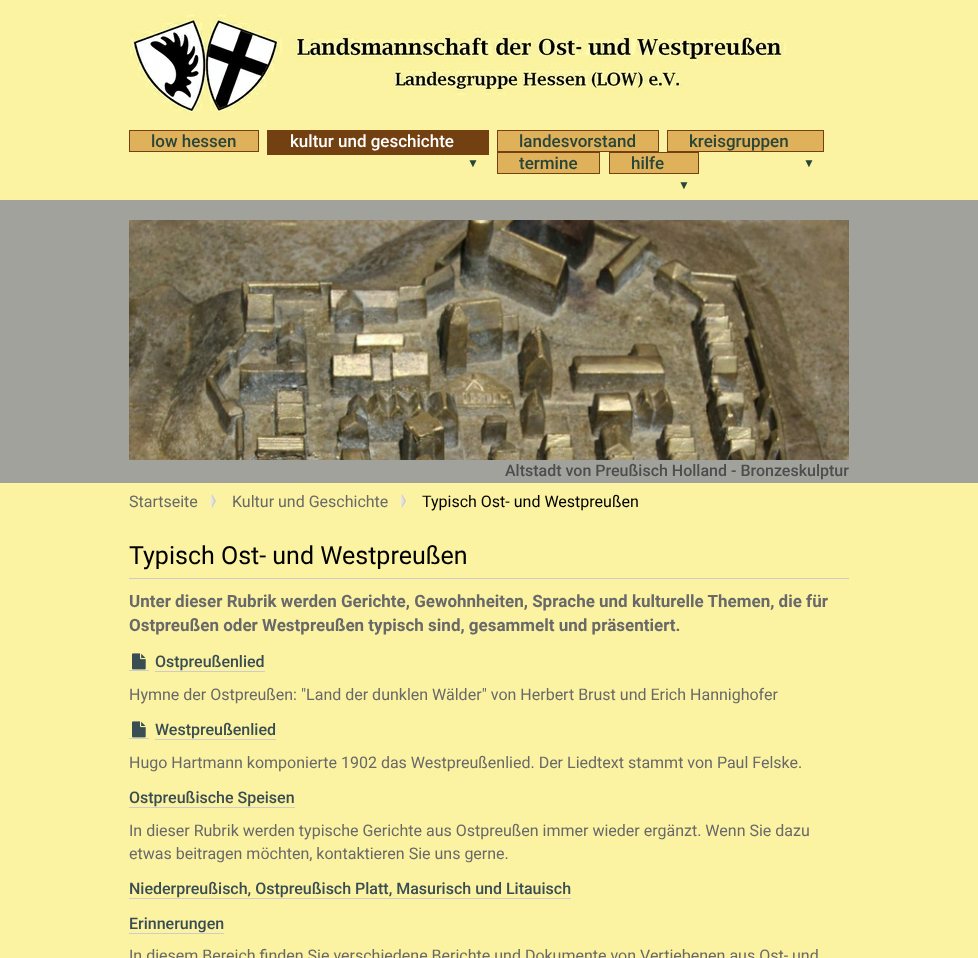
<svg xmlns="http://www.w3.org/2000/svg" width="978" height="958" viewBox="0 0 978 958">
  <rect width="100%" height="100%" fill="rgb(251,243,162)"/>
  <image x="130" y="15" width="656" height="100" href="pic1.png"/>
  <rect x="129.5" y="130.5" width="129" height="21" fill="rgb(223,177,91)" stroke="rgb(115,64,18)"/>
  <text x="151" y="147" font-family="Roboto" font-size="17" font-weight="500" fill="rgb(41,69,56)">low hessen</text>
  <rect x="267" y="130" width="222" height="25" fill="rgb(115,64,18)"/>
  <text x="290" y="147" font-family="Roboto" font-size="17" font-weight="500" fill="rgb(255,255,255)">kultur und geschichte</text>
  <text x="467" y="167" font-family="Liberation Sans" font-size="12" font-weight="bold" fill="rgb(41,69,56)">▼</text>
  <rect x="497.5" y="130.5" width="161" height="21" fill="rgb(223,177,91)" stroke="rgb(115,64,18)"/>
  <text x="519" y="147" font-family="Roboto" font-size="17" font-weight="500" fill="rgb(41,69,56)">landesvorstand</text>
  <rect x="667.5" y="130.5" width="156" height="21" fill="rgb(223,177,91)" stroke="rgb(115,64,18)"/>
  <text x="689" y="147" font-family="Roboto" font-size="17" font-weight="500" fill="rgb(41,69,56)">kreisgruppen</text>
  <text x="803" y="167" font-family="Liberation Sans" font-size="12" font-weight="bold" fill="rgb(41,69,56)">▼</text>
  <rect x="497.5" y="152.5" width="102" height="21" fill="rgb(223,177,91)" stroke="rgb(115,64,18)"/>
  <text x="519" y="169" font-family="Roboto" font-size="17" font-weight="500" fill="rgb(41,69,56)">termine</text>
  <rect x="609.5" y="152.5" width="89" height="21" fill="rgb(223,177,91)" stroke="rgb(115,64,18)"/>
  <text x="631" y="169" font-family="Roboto" font-size="17" font-weight="500" fill="rgb(41,69,56)">hilfe</text>
  <text x="678" y="189" font-family="Liberation Sans" font-size="12" font-weight="bold" fill="rgb(41,69,56)">▼</text>
  <rect x="0" y="200" width="978" height="283" fill="rgb(162,162,157)"/>
  <image x="129" y="220" width="720" height="240" href="pic2.png"/>
  <text x="505" y="476" font-family="Roboto" font-size="16" font-weight="500" fill="rgb(77,77,77)">Altstadt von Preußisch Holland - Bronzeskulptur</text>
  <text x="129" y="507" font-family="Roboto" font-size="16" fill="rgb(105,105,105)">Startseite</text>
  <path d="M212 508V494L216 501Z" fill="rgb(204,204,204)"/>
  <path d="M211 508V494L214 501Z" fill="rgb(230,228,228)"/>
  <text x="232" y="507" font-family="Roboto" font-size="16" fill="rgb(105,105,105)">Kultur und Geschichte</text>
  <path d="M402 508V494L406 501Z" fill="rgb(204,204,204)"/>
  <path d="M401 508V494L404 501Z" fill="rgb(230,228,228)"/>
  <text x="422" y="507" font-family="Roboto" font-size="16" fill="rgb(0,0,0)">Typisch Ost- und Westpreußen</text>
  <rect x="129" y="578" width="720" height="1" fill="rgb(204,204,204)"/>
  <text x="129" y="564" font-family="Roboto" font-size="25" fill="rgb(0,0,0)">Typisch Ost- und Westpreußen</text>
  <g font-family="Roboto" font-size="17" font-weight="bold" fill="rgb(105,105,105)">
    <text>
      <tspan x="129" y="607">Unter dieser Rubrik werden Gerichte, Gewohnheiten, Sprache und kulturelle Themen, die für</tspan>
      <tspan x="129" y="631">Ostpreußen oder Westpreußen typisch sind, gesammelt und präsentiert.</tspan>
    </text>
  </g>
  <rect x="129" y="670" width="20" height="1" fill="rgb(204,204,204)"/>
  <rect x="155" y="671" width="110" height="1" fill="rgb(204,204,204)"/>
  <image x="132" y="653" width="14" height="17" href="pic3.png"/>
  <text x="155" y="667" font-family="Roboto" font-size="16" font-weight="500" fill="rgb(57,77,83)">Ostpreußenlied</text>
  <text x="129" y="700" font-family="Roboto" font-size="16" fill="rgb(105,105,105)">Hymne der Ostpreußen: "Land der dunklen Wälder" von Herbert Brust und Erich Hannighofer</text>
  <rect x="129" y="738" width="20" height="1" fill="rgb(204,204,204)"/>
  <rect x="155" y="739" width="121" height="1" fill="rgb(204,204,204)"/>
  <image x="132" y="721" width="14" height="17" href="pic3.png"/>
  <text x="155" y="735" font-family="Roboto" font-size="16" font-weight="500" fill="rgb(57,77,83)">Westpreußenlied</text>
  <text x="129" y="768" font-family="Roboto" font-size="16" fill="rgb(105,105,105)">Hugo Hartmann komponierte 1902 das Westpreußenlied. Der Liedtext stammt von Paul Felske.</text>
  <text x="129" y="803" font-family="Roboto" font-size="16" font-weight="500" fill="rgb(57,77,83)">Ostpreußische Speisen</text>
  <rect x="129" y="807" width="166" height="1" fill="rgb(204,204,204)"/>
  <g font-family="Roboto" font-size="16" fill="rgb(105,105,105)">
    <text>
      <tspan x="129" y="836">In dieser Rubrik werden typische Gerichte aus Ostpreußen immer wieder ergänzt. Wenn Sie dazu</tspan>
      <tspan x="129" y="859">etwas beitragen möchten, kontaktieren Sie uns gerne.</tspan>
    </text>
  </g>
  <text x="129" y="894" font-family="Roboto" font-size="16" font-weight="500" fill="rgb(57,77,83)">Niederpreußisch, Ostpreußisch Platt, Masurisch und Litauisch</text>
  <rect x="129" y="898" width="442" height="1" fill="rgb(204,204,204)"/>
  <text x="129" y="929" font-family="Roboto" font-size="16" font-weight="500" fill="rgb(57,77,83)">Erinnerungen</text>
  <rect x="129" y="933" width="95" height="1" fill="rgb(204,204,204)"/>
  <text x="129" y="961" font-family="Roboto" font-size="16" fill="rgb(105,105,105)">In diesem Bereich finden Sie verschiedene Berichte und Dokumente von Vertiebenen aus Ost- und</text>
</svg>
